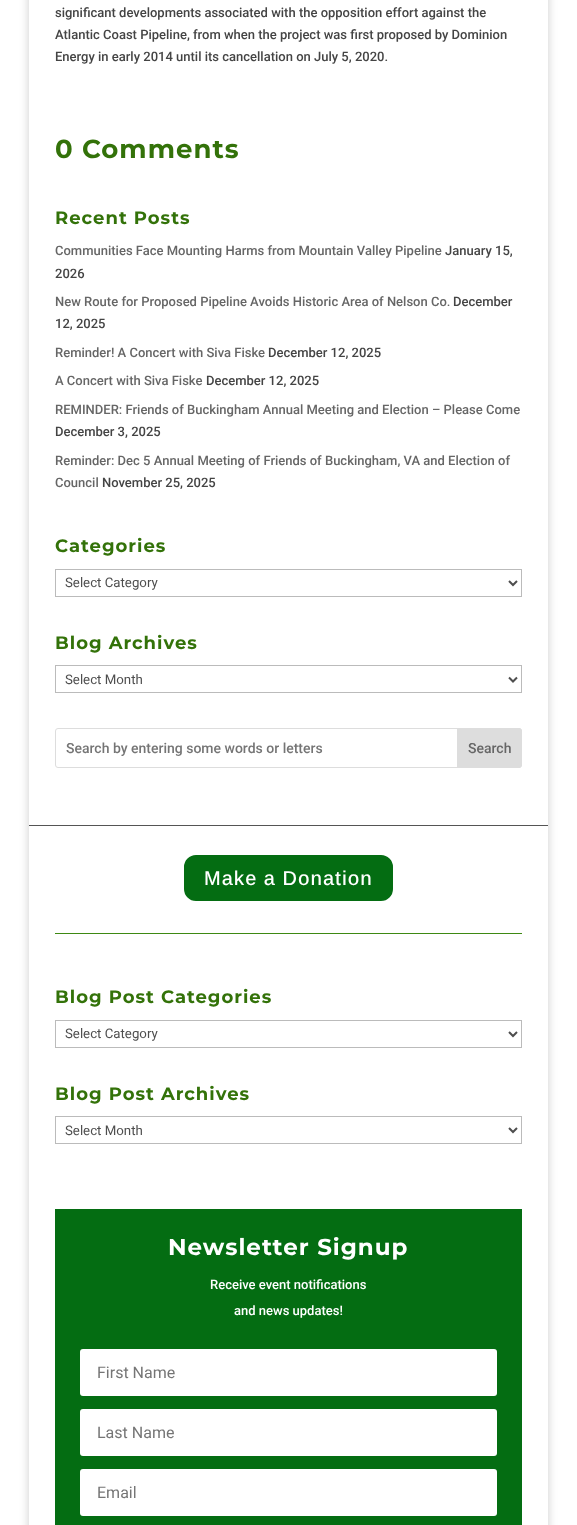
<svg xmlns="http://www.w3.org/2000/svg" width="577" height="1525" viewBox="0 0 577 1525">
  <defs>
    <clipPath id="clip1"><path d="M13 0H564V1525H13ZM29-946H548V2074H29Z" clip-rule="evenodd"/></clipPath>
  </defs>
  <rect width="100%" height="100%" fill="rgb(255,255,255)"/>
  <g clip-path="url(#clip1)">
    <rect x="29" y="-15" width="519" height="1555" fill="rgba(0,0,0,0.2)" filter="blur(5px)"/>
  </g>
  <g font-family="Roboto" font-size="13" font-weight="500" fill="rgb(68,68,68)">
    <text>
      <tspan x="55" y="17">significant developments associated with the opposition effort against the</tspan>
      <tspan x="55" y="39">Atlantic Coast Pipeline, from when the project was first proposed by Dominion</tspan>
      <tspan x="55" y="61">Energy in early 2014 until its cancellation on July 5, 2020.</tspan>
    </text>
  </g>
  <text x="55" y="158" font-family="Montserrat" font-size="26" font-weight="bold" letter-spacing="1" fill="rgb(51,114,9)">0 Comments</text>
  <text x="55" y="224" font-family="Montserrat" font-size="18" font-weight="bold" letter-spacing="1" fill="rgb(51,114,9)">Recent Posts</text>
  <text x="55" y="255" font-family="Roboto" font-size="13" font-weight="500" fill="rgb(102,102,102)">Communities Face Mounting Harms from Mountain Valley Pipeline</text>
  <g font-family="Roboto" font-size="13" font-weight="500" fill="rgb(68,68,68)">
    <text x="445" y="255">January 15,</text>
    <text x="55" y="278">2026</text>
  </g>
  <text x="55" y="306" font-family="Roboto" font-size="13" font-weight="500" fill="rgb(102,102,102)">New Route for Proposed Pipeline Avoids Historic Area of Nelson Co.</text>
  <g font-family="Roboto" font-size="13" font-weight="500" fill="rgb(68,68,68)">
    <text x="453" y="306">December</text>
    <text x="55" y="328">12, 2025</text>
  </g>
  <text x="55" y="357" font-family="Roboto" font-size="13" font-weight="500" fill="rgb(102,102,102)">Reminder! A Concert with Siva Fiske</text>
  <text x="268" y="357" font-family="Roboto" font-size="13" font-weight="500" fill="rgb(68,68,68)">December 12, 2025</text>
  <text x="55" y="385" font-family="Roboto" font-size="13" font-weight="500" fill="rgb(102,102,102)">A Concert with Siva Fiske</text>
  <text x="206" y="385" font-family="Roboto" font-size="13" font-weight="500" fill="rgb(68,68,68)">December 12, 2025</text>
  <text x="55" y="414" font-family="Roboto" font-size="13" font-weight="500" fill="rgb(102,102,102)">REMINDER: Friends of Buckingham Annual Meeting and Election – Please Come</text>
  <text x="55" y="436" font-family="Roboto" font-size="13" font-weight="500" fill="rgb(68,68,68)">December 3, 2025</text>
  <g font-family="Roboto" font-size="13" font-weight="500" fill="rgb(102,102,102)">
    <text>
      <tspan x="55" y="465">Reminder: Dec 5 Annual Meeting of Friends of Buckingham, VA and Election of</tspan>
      <tspan x="55" y="487">Council</tspan>
    </text>
  </g>
  <text x="102" y="487" font-family="Roboto" font-size="13" font-weight="500" fill="rgb(68,68,68)">November 25, 2025</text>
  <text x="55" y="552" font-family="Montserrat" font-size="18" font-weight="bold" letter-spacing="1" fill="rgb(51,114,9)">Categories</text>
  <rect x="55.5" y="569.5" width="466" height="27" fill="none" stroke="rgb(187,187,187)"/>
  <path d="M509 581L513 585L517 581" fill="none" stroke="rgb(78,78,78)" stroke-width="2"/>
  <text x="65" y="587" font-family="Roboto" font-size="13.25" fill="rgb(78,78,78)">Select Category</text>
  <text x="55" y="649" font-family="Montserrat" font-size="18" font-weight="bold" letter-spacing="1" fill="rgb(51,114,9)">Blog Archives</text>
  <rect x="55.5" y="665.5" width="466" height="27" fill="none" stroke="rgb(187,187,187)"/>
  <path d="M509 677.5L513 681.5L517 677.5" fill="none" stroke="rgb(78,78,78)" stroke-width="2"/>
  <text x="65" y="684" font-family="Roboto" font-size="13.25" fill="rgb(78,78,78)">Select Month</text>
  <rect x="55.5" y="728.5" width="466" height="39" rx="2.5" fill="none" stroke="rgb(221,221,221)"/>
  <text x="66" y="753" font-family="Roboto" font-size="14" font-weight="500" fill="rgb(117,117,117)">Search by entering some words or letters</text>
  <path d="M457.5 728.5H519C520.5 728.5 521.5 729.5 521.5 731V765C521.5 766.5 520.5 767.5 519 767.5H457.5Z" fill="rgb(221,221,221)" stroke="rgb(221,221,221)"/>
  <text x="468" y="753" font-family="Roboto" font-size="14" font-weight="500" fill="rgb(102,102,102)">Search</text>
  <rect x="29" y="825" width="519" height="1" fill="rgb(85,85,85)"/>
  <rect x="183" y="854" width="211" height="48" rx="13" fill="rgb(4,109,18)" stroke="rgb(255,255,255)" stroke-width="2"/>
  <text x="204" y="885" font-family="Arimo" font-size="20" font-weight="500" letter-spacing="1" fill="rgb(255,255,255)">Make a Donation</text>
  <rect x="55" y="933" width="467" height="1" fill="rgb(62,137,19)"/>
  <text x="55" y="1003" font-family="Montserrat" font-size="18" font-weight="bold" letter-spacing="1" fill="rgb(51,114,9)">Blog Post Categories</text>
  <rect x="55.5" y="1020.5" width="466" height="27" fill="none" stroke="rgb(187,187,187)"/>
  <path d="M509 1032L513 1036L517 1032" fill="none" stroke="rgb(78,78,78)" stroke-width="2"/>
  <text x="65" y="1038" font-family="Roboto" font-size="13.25" fill="rgb(78,78,78)">Select Category</text>
  <text x="55" y="1100" font-family="Montserrat" font-size="18" font-weight="bold" letter-spacing="1" fill="rgb(51,114,9)">Blog Post Archives</text>
  <rect x="55.5" y="1116.5" width="466" height="27" fill="none" stroke="rgb(187,187,187)"/>
  <path d="M509 1128L513 1132L517 1128" fill="none" stroke="rgb(78,78,78)" stroke-width="2"/>
  <text x="65" y="1135" font-family="Roboto" font-size="13.25" fill="rgb(78,78,78)">Select Month</text>
  <rect x="55" y="1209" width="467" height="316" fill="rgb(4,109,18)"/>
  <text x="168" y="1255" font-family="Montserrat" font-size="23" font-weight="bold" letter-spacing="1" fill="rgb(255,255,255)">Newsletter Signup</text>
  <g font-family="Roboto" font-size="13" font-weight="500" fill="rgb(255,255,255)">
    <text x="210" y="1289">Receive event notifications</text>
    <text x="234" y="1315">and news updates!</text>
  </g>
  <rect x="80" y="1349" width="417" height="47" rx="3" fill="rgb(255,255,255)"/>
  <text x="97" y="1378" font-family="Roboto" font-size="16" fill="rgb(117,117,117)">First Name</text>
  <rect x="80" y="1409" width="417" height="47" rx="3" fill="rgb(255,255,255)"/>
  <text x="97" y="1438" font-family="Roboto" font-size="16" fill="rgb(117,117,117)">Last Name</text>
  <rect x="80" y="1469" width="417" height="47" rx="3" fill="rgb(255,255,255)"/>
  <text x="97" y="1498" font-family="Roboto" font-size="16" fill="rgb(117,117,117)">Email</text>
</svg>
